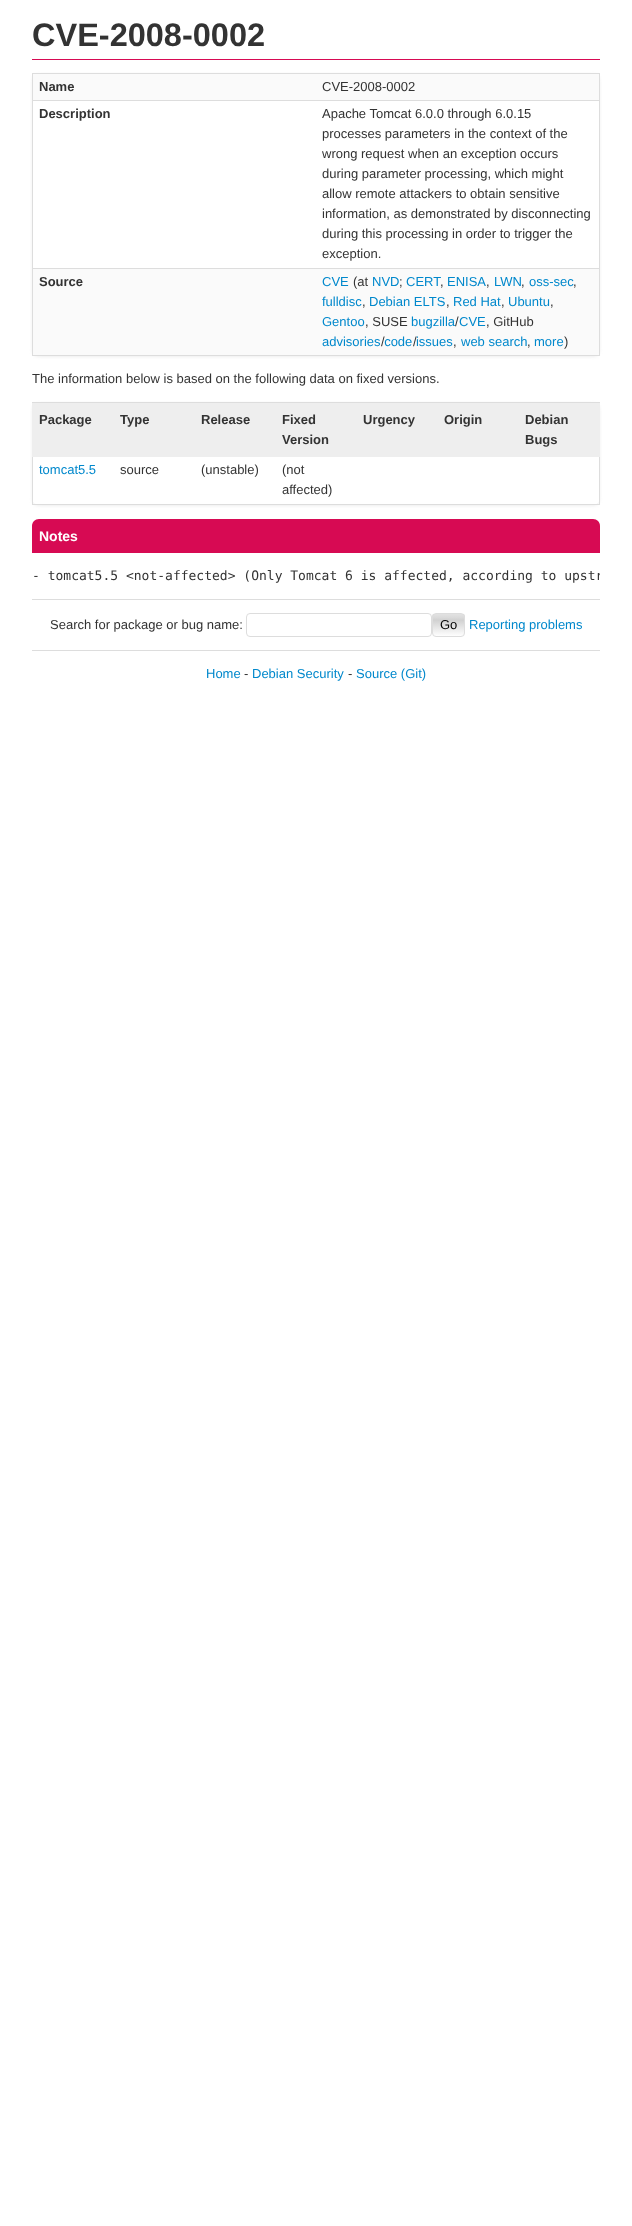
<svg xmlns="http://www.w3.org/2000/svg" width="632" height="2226" viewBox="0 0 632 2226">
  <defs>
    <clipPath id="clip1"><path d="M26 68H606V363H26ZM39 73H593C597 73 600 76 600 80V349C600 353 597 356 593 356H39C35 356 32 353 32 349V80C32 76 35 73 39 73Z" clip-rule="evenodd"/></clipPath>
    <clipPath id="clip2"><path d="M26 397H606V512H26ZM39 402H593C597 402 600 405 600 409V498C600 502 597 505 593 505H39C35 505 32 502 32 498V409C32 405 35 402 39 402Z" clip-rule="evenodd"/></clipPath>
    <clipPath id="clip3"><rect x="32" y="566" width="568" height="20"/></clipPath>
    <clipPath id="clip4"><rect x="432" y="613" width="33" height="24" rx="4"/></clipPath>
    <linearGradient id="g1" gradientUnits="userSpaceOnUse" x1="449" y1="614" x2="449" y2="636"><stop offset="0" stop-color="rgb(226,226,226)"/><stop offset="0.15" stop-color="rgb(219,219,219)"/><stop offset="0.28" stop-color="rgb(209,209,209)"/><stop offset="1" stop-color="rgb(254,254,254)"/></linearGradient>
  </defs>
  <rect width="100%" height="100%" fill="rgb(255,255,255)"/>
  <rect x="32" y="59" width="568" height="1" fill="rgb(215,10,83)"/>
  <text x="32" y="46" font-family="Liberation Sans" font-size="32.5" font-weight="bold" fill="rgb(51,51,51)">CVE-2008-0002</text>
  <g clip-path="url(#clip1)">
    <rect x="32" y="74" width="568" height="283" rx="7" fill="rgb(238,238,238)" filter="blur(1.5px)"/>
  </g>
  <rect x="32" y="73" width="568" height="1" fill="rgb(221,221,221)"/>
  <rect x="599" y="73" width="1" height="283" fill="rgb(221,221,221)"/>
  <rect x="32" y="355" width="568" height="1" fill="rgb(221,221,221)"/>
  <rect x="32" y="73" width="1" height="283" fill="rgb(221,221,221)"/>
  <rect x="33" y="74" width="566" height="26" fill="rgb(250,250,250)"/>
  <text x="39" y="91" font-family="Liberation Sans" font-size="13" font-weight="bold" fill="rgb(51,51,51)">Name</text>
  <rect x="32" y="100" width="568" height="1" fill="rgb(221,221,221)"/>
  <text x="322" y="91" font-family="Liberation Sans" font-size="13" fill="rgb(51,51,51)">CVE-2008-0002</text>
  <text x="39" y="118" font-family="Liberation Sans" font-size="13" font-weight="bold" fill="rgb(51,51,51)">Description</text>
  <rect x="32" y="268" width="568" height="1" fill="rgb(221,221,221)"/>
  <g font-family="Liberation Sans" font-size="13" fill="rgb(51,51,51)">
    <text>
      <tspan x="322" y="118">Apache Tomcat 6.0.0 through 6.0.15</tspan>
      <tspan x="322" y="138">processes parameters in the context of the</tspan>
      <tspan x="322" y="158">wrong request when an exception occurs</tspan>
      <tspan x="322" y="178">during parameter processing, which might</tspan>
      <tspan x="322" y="198">allow remote attackers to obtain sensitive</tspan>
      <tspan x="322" y="218">information, as demonstrated by disconnecting</tspan>
      <tspan x="322" y="238">during this processing in order to trigger the</tspan>
      <tspan x="322" y="258">exception.</tspan>
    </text>
  </g>
  <rect x="33" y="269" width="566" height="86" fill="rgb(250,250,250)"/>
  <text x="39" y="286" font-family="Liberation Sans" font-size="13" font-weight="bold" fill="rgb(51,51,51)">Source</text>
  <text x="322" y="286" font-family="Liberation Sans" font-size="13" fill="rgb(0,136,204)">CVE</text>
  <text x="353" y="286" font-family="Liberation Sans" font-size="13" fill="rgb(51,51,51)">(at</text>
  <text x="372" y="286" font-family="Liberation Sans" font-size="13" fill="rgb(0,136,204)">NVD</text>
  <text x="399" y="286" font-family="Liberation Sans" font-size="13" fill="rgb(51,51,51)">;</text>
  <g font-family="Liberation Sans" font-size="13" fill="rgb(0,136,204)">
    <text x="406" y="286">CERT</text>
    <text x="447" y="286">ENISA</text>
    <text x="494" y="286">LWN</text>
    <text x="529" y="286">oss-sec</text>
  </g>
  <g font-family="Liberation Sans" font-size="13" fill="rgb(51,51,51)">
    <text x="440" y="286">,</text>
    <text x="486" y="286">,</text>
    <text x="521" y="286">,</text>
    <text x="573" y="286">,</text>
  </g>
  <text x="322" y="306" font-family="Liberation Sans" font-size="13" fill="rgb(0,136,204)">fulldisc</text>
  <text x="362" y="306" font-family="Liberation Sans" font-size="13" fill="rgb(51,51,51)">,</text>
  <text x="369" y="306" font-family="Liberation Sans" font-size="13" fill="rgb(0,136,204)">Debian ELTS</text>
  <text x="446" y="306" font-family="Liberation Sans" font-size="13" fill="rgb(51,51,51)">,</text>
  <text x="453" y="306" font-family="Liberation Sans" font-size="13" fill="rgb(0,136,204)">Red Hat</text>
  <text x="501" y="306" font-family="Liberation Sans" font-size="13" fill="rgb(51,51,51)">,</text>
  <text x="508" y="306" font-family="Liberation Sans" font-size="13" fill="rgb(0,136,204)">Ubuntu</text>
  <text x="550" y="306" font-family="Liberation Sans" font-size="13" fill="rgb(51,51,51)">,</text>
  <text x="322" y="326" font-family="Liberation Sans" font-size="13" fill="rgb(0,136,204)">Gentoo</text>
  <text x="365" y="326" font-family="Liberation Sans" font-size="13" fill="rgb(51,51,51)">, SUSE</text>
  <text x="411" y="326" font-family="Liberation Sans" font-size="13" fill="rgb(0,136,204)">bugzilla</text>
  <text x="455" y="326" font-family="Liberation Sans" font-size="13" fill="rgb(51,51,51)">/</text>
  <text x="459" y="326" font-family="Liberation Sans" font-size="13" fill="rgb(0,136,204)">CVE</text>
  <text x="486" y="326" font-family="Liberation Sans" font-size="13" fill="rgb(51,51,51)">, GitHub</text>
  <text x="322" y="346" font-family="Liberation Sans" font-size="13" fill="rgb(0,136,204)">advisories code issues</text>
  <g font-family="Liberation Sans" font-size="13" fill="rgb(51,51,51)">
    <text x="381" y="346">/</text>
    <text x="413" y="346">/</text>
    <text x="453" y="346">,</text>
  </g>
  <text x="461" y="346" font-family="Liberation Sans" font-size="13" fill="rgb(0,136,204)">web search</text>
  <text x="527" y="346" font-family="Liberation Sans" font-size="13" fill="rgb(51,51,51)">,</text>
  <text x="534" y="346" font-family="Liberation Sans" font-size="13" fill="rgb(0,136,204)">more</text>
  <g font-family="Liberation Sans" font-size="13" fill="rgb(51,51,51)">
    <text x="564" y="346">)</text>
    <text x="32" y="383">The information below is based on the following data on fixed versions.</text>
  </g>
  <g clip-path="url(#clip2)">
    <rect x="32" y="403" width="568" height="103" rx="7" fill="rgb(238,238,238)" filter="blur(1.5px)"/>
  </g>
  <rect x="32" y="402" width="568" height="1" fill="rgb(221,221,221)"/>
  <rect x="599" y="402" width="1" height="103" fill="rgb(221,221,221)"/>
  <rect x="32" y="504" width="568" height="1" fill="rgb(221,221,221)"/>
  <rect x="32" y="402" width="1" height="103" fill="rgb(221,221,221)"/>
  <rect x="32" y="403" width="568" height="54" fill="rgb(238,238,238)"/>
  <g font-family="Liberation Sans" font-size="13" font-weight="bold" fill="rgb(51,51,51)">
    <text x="39" y="424">Package</text>
    <text x="120" y="424">Type</text>
    <text x="201" y="424">Release</text>
    <text>
      <tspan x="282" y="424">Fixed</tspan>
      <tspan x="282" y="444">Version</tspan>
    </text>
    <text x="363" y="424">Urgency</text>
    <text x="444" y="424">Origin</text>
    <text>
      <tspan x="525" y="424">Debian</tspan>
      <tspan x="525" y="444">Bugs</tspan>
    </text>
  </g>
  <text x="39" y="474" font-family="Liberation Sans" font-size="13" fill="rgb(0,136,204)">tomcat5.5</text>
  <g font-family="Liberation Sans" font-size="13" fill="rgb(51,51,51)">
    <text x="120" y="474">source</text>
    <text x="201" y="474">(unstable)</text>
    <text>
      <tspan x="282" y="474">(not</tspan>
      <tspan x="282" y="494">affected)</tspan>
    </text>
  </g>
  <path d="M39 519H593C597 519 600 522 600 526V553H32V526C32 522 35 519 39 519Z" fill="rgb(215,10,83)"/>
  <text x="39" y="541" font-family="Liberation Sans" font-size="14" font-weight="bold" fill="rgb(255,255,255)">Notes</text>
  <g clip-path="url(#clip3)">
    <text x="32" y="580" font-family="DejaVu Sans Mono" font-size="13" fill="rgb(51,51,51)">- tomcat5.5 &lt;not-affected&gt; (Only Tomcat 6 is affected, according to upstr</text>
  </g>
  <rect x="32" y="599" width="568" height="1" fill="rgb(221,221,221)"/>
  <rect x="32" y="650" width="568" height="1" fill="rgb(221,221,221)"/>
  <text x="50" y="629" font-family="Liberation Sans" font-size="13" fill="rgb(51,51,51)">Search for package or bug name:</text>
  <rect x="246.5" y="613.5" width="185" height="23" rx="3.5" fill="none" stroke="rgb(221,221,221)"/>
  <g clip-path="url(#clip4)">
    <rect x="432" y="614" width="33" height="22" fill="url(#g1)"/>
  </g>
  <rect x="432.5" y="613.5" width="32" height="23" rx="3.5" fill="none" stroke="rgb(221,221,221)"/>
  <text x="440" y="629" font-family="Liberation Sans" font-size="13" fill="rgb(0,0,0)">Go</text>
  <g font-family="Liberation Sans" font-size="13" fill="rgb(0,136,204)">
    <text x="469" y="629">Reporting problems</text>
    <text x="206" y="678">Home</text>
  </g>
  <text x="244" y="678" font-family="Liberation Sans" font-size="13" fill="rgb(51,51,51)">-</text>
  <text x="252" y="678" font-family="Liberation Sans" font-size="13" fill="rgb(0,136,204)">Debian Security</text>
  <text x="348" y="678" font-family="Liberation Sans" font-size="13" fill="rgb(51,51,51)">-</text>
  <text x="356" y="678" font-family="Liberation Sans" font-size="13" fill="rgb(0,136,204)">Source (Git)</text>
</svg>
